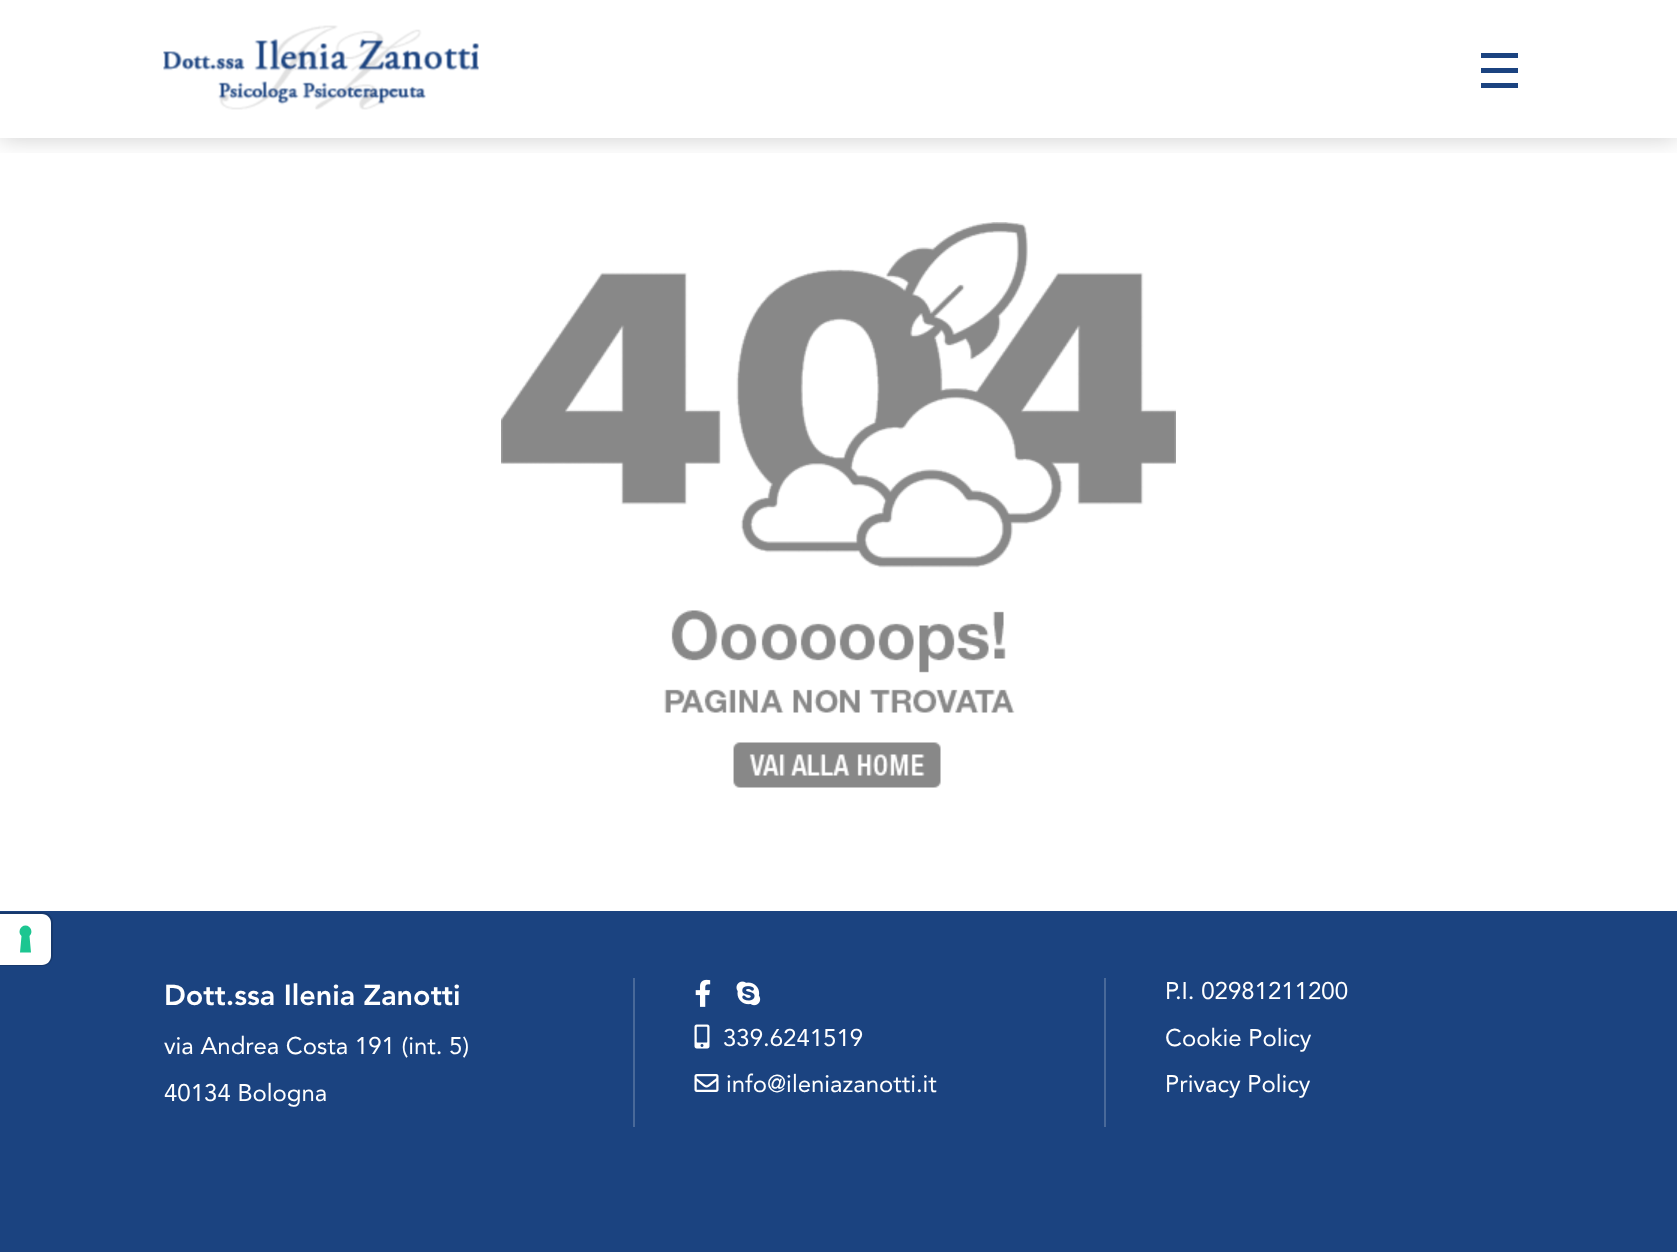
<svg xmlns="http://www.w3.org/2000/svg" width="1677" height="1252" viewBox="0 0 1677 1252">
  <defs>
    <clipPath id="clip1"><rect x="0" y="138" width="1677" height="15"/></clipPath>
  </defs>
  <rect width="100%" height="100%" fill="rgb(255,255,255)"/>
  <g clip-path="url(#clip1)">
    <rect x="0" y="0" width="1677" height="138" fill="rgba(0,0,0,0.2)" filter="blur(12px)"/>
  </g>
  <image x="163" y="25" width="316" height="85" href="pic1.png"/>
  <rect x="1481" y="53" width="37" height="5" fill="rgb(27,67,128)"/>
  <rect x="1481" y="68" width="37" height="5" fill="rgb(27,67,128)"/>
  <rect x="1481" y="83" width="37" height="5" fill="rgb(27,67,128)"/>
  <image x="501" y="222" width="675" height="566" href="pic2.png"/>
  <rect x="0" y="911" width="1677" height="341" fill="rgb(27,67,128)"/>
  <path d="M0 913H42C47.5 913 52 917.5 52 923V955C52 960.5 47.5 965 42 965H0Z" fill="none" stroke="rgb(23,57,109)" stroke-width="2"/>
  <path d="M0 914H42C47 914 51 918 51 923V956C51 961 47 965 42 965H0Z" fill="rgb(255,255,255)"/>
  <path d="M25.5 925.5C31 925.5 33.5 932.5 29.5 936L31 952.5H20L21.5 936C17.5 932.5 20 925.5 25.5 925.5Z" fill="rgb(28,198,145)" fill-rule="evenodd"/>
  <text x="164" y="1005" font-family="Avenir" font-size="28.75" font-weight="900" fill="rgb(255,255,255)">Dott.ssa Ilenia Zanotti</text>
  <g font-family="Avenir" font-size="24" fill="rgb(255,255,255)">
    <text>
      <tspan x="164" y="1054">via Andrea Costa 191 (int. 5)</tspan>
      <tspan x="164" y="1101">40134 Bologna</tspan>
    </text>
  </g>
  <rect x="633" y="978" width="2" height="149" fill="rgb(73,105,153)"/>
  <image x="695" y="979" width="16" height="28" href="pic3.png"/>
  <image x="736" y="981" width="25" height="25" href="pic4.png"/>
  <image x="694" y="1024" width="16" height="25" href="pic5.png"/>
  <text x="723" y="1046" font-family="Avenir" font-size="24" fill="rgb(255,255,255)">339.6241519</text>
  <image x="694" y="1074" width="25" height="18" href="pic6.png"/>
  <text x="726" y="1092" font-family="Avenir" font-size="24" fill="rgb(255,255,255)">info@ileniazanotti.it</text>
  <rect x="1104" y="978" width="2" height="149" fill="rgb(73,105,153)"/>
  <g font-family="Avenir" font-size="24" fill="rgb(255,255,255)">
    <text>
      <tspan x="1165" y="999">P.I. 02981211200</tspan>
      <tspan x="1165" y="1046">Cookie Policy</tspan>
      <tspan x="1165" y="1092">Privacy Policy</tspan>
    </text>
  </g>
</svg>
